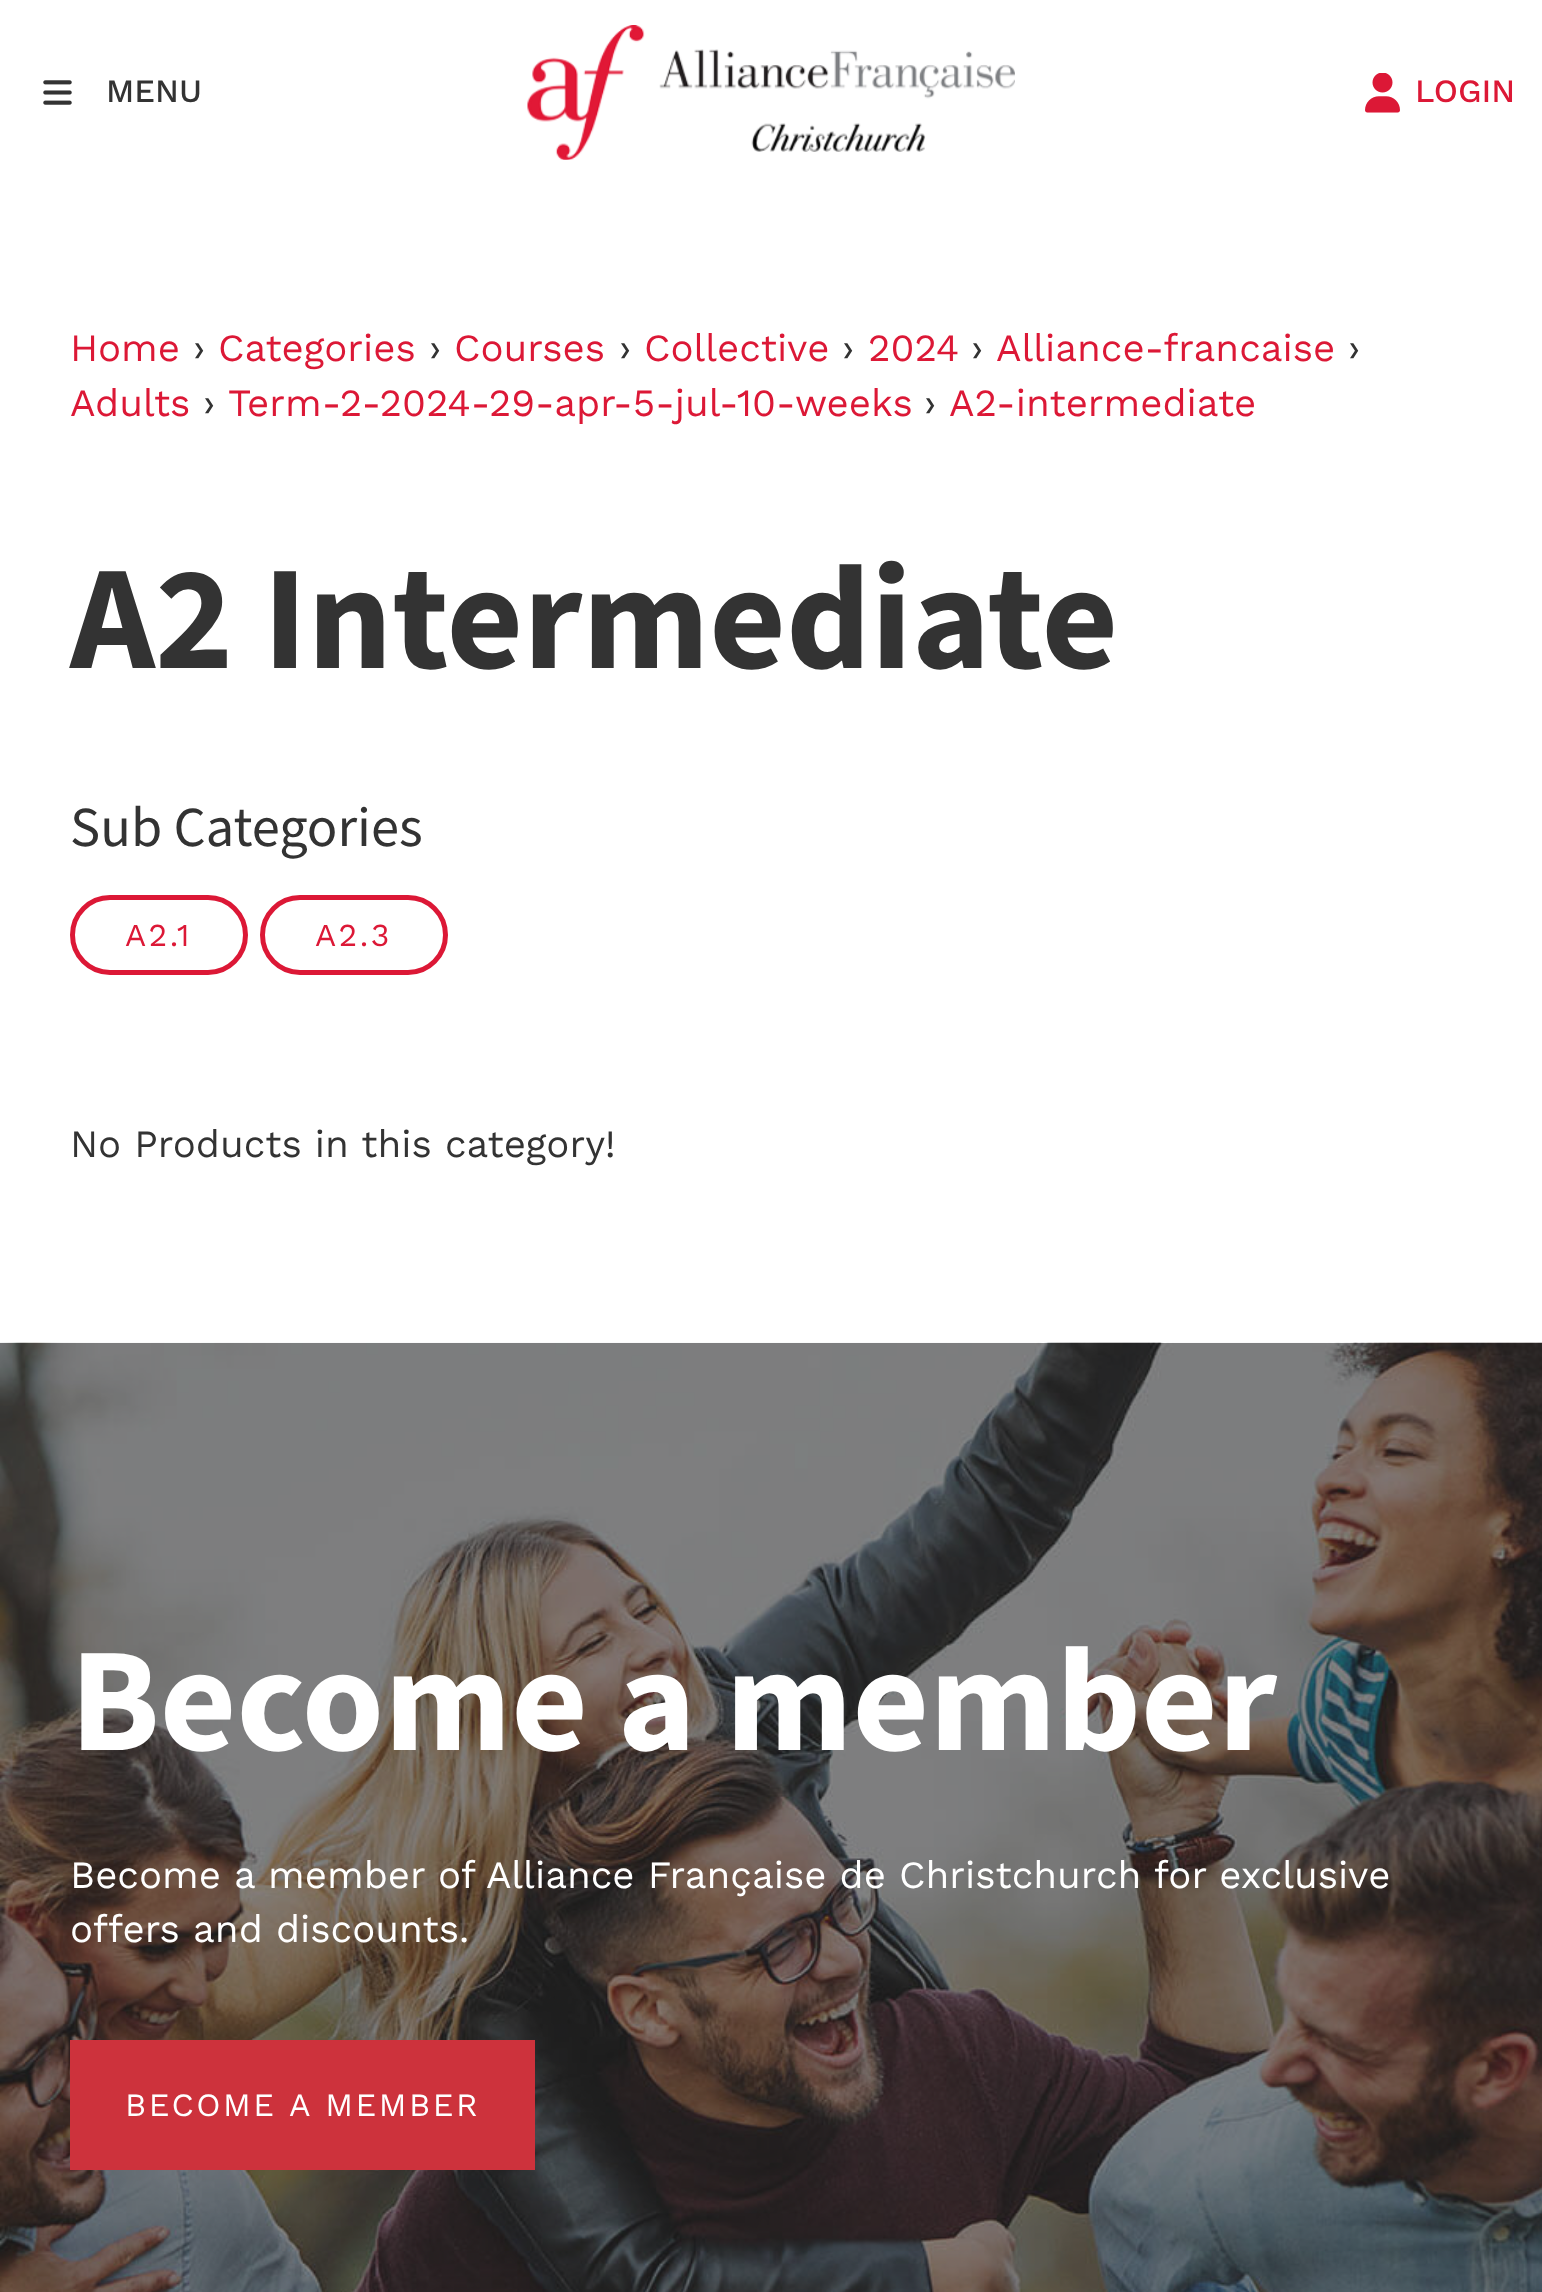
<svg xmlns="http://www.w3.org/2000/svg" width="1542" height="2292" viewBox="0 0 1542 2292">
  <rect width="100%" height="100%" fill="rgb(255,255,255)"/>
  <image x="43" y="80" width="29" height="25" href="pic1.png"/>
  <text x="106" y="102" font-family="Work Sans" font-size="32.5" font-weight="500" fill="rgb(51,51,51)">MENU</text>
  <image x="527" y="25" width="488" height="135" href="pic2.png"/>
  <image x="1365" y="73" width="35" height="40" href="pic3.png"/>
  <text x="1415" y="102" font-family="Work Sans" font-size="32.5" font-weight="500" fill="rgb(220,24,54)">LOGIN</text>
  <text x="70" y="361" font-family="Work Sans" font-size="38.5" fill="rgb(220,24,54)">Home</text>
  <text x="193" y="361" font-family="Work Sans" font-size="38.5" fill="rgb(51,51,51)">›</text>
  <text x="218" y="361" font-family="Work Sans" font-size="38.5" fill="rgb(220,24,54)">Categories</text>
  <text x="429" y="361" font-family="Work Sans" font-size="38.5" fill="rgb(51,51,51)">›</text>
  <text x="454" y="361" font-family="Work Sans" font-size="38.5" fill="rgb(220,24,54)">Courses</text>
  <text x="619" y="361" font-family="Work Sans" font-size="38.5" fill="rgb(51,51,51)">›</text>
  <text x="644" y="361" font-family="Work Sans" font-size="38.5" fill="rgb(220,24,54)">Collective</text>
  <text x="842" y="361" font-family="Work Sans" font-size="38.5" fill="rgb(51,51,51)">›</text>
  <text x="868" y="361" font-family="Work Sans" font-size="38.5" fill="rgb(220,24,54)">2024</text>
  <text x="971" y="361" font-family="Work Sans" font-size="38.5" fill="rgb(51,51,51)">›</text>
  <text x="996" y="361" font-family="Work Sans" font-size="38.5" fill="rgb(220,24,54)">Alliance-francaise</text>
  <text x="1348" y="361" font-family="Work Sans" font-size="38.5" fill="rgb(51,51,51)">›</text>
  <text x="70" y="416" font-family="Work Sans" font-size="38.5" fill="rgb(220,24,54)">Adults</text>
  <text x="203" y="416" font-family="Work Sans" font-size="38.5" fill="rgb(51,51,51)">›</text>
  <text x="228" y="416" font-family="Work Sans" font-size="38.5" fill="rgb(220,24,54)">Term-2-2024-29-apr-5-jul-10-weeks</text>
  <text x="924" y="416" font-family="Work Sans" font-size="38.5" fill="rgb(51,51,51)">›</text>
  <text x="949" y="416" font-family="Work Sans" font-size="38.5" fill="rgb(220,24,54)">A2-intermediate</text>
  <text x="70" y="668" font-family="Mada" font-size="148.25" font-weight="bold" fill="rgb(51,51,51)">A2 Intermediate</text>
  <text x="70" y="846" font-family="Mada" font-size="56.5" fill="rgb(51,51,51)">Sub Categories</text>
  <rect x="72.5" y="897.5" width="173" height="75" rx="37.5" fill="none" stroke="rgb(220,24,54)" stroke-width="5"/>
  <text x="125" y="946" font-family="Work Sans" font-size="32" letter-spacing="2.5" fill="rgb(220,24,54)">A2.1</text>
  <rect x="262.5" y="897.5" width="183" height="75" rx="37.5" fill="none" stroke="rgb(220,24,54)" stroke-width="5"/>
  <text x="315" y="946" font-family="Work Sans" font-size="32" letter-spacing="2.5" fill="rgb(220,24,54)">A2.3</text>
  <text x="70" y="1157" font-family="Work Sans" font-size="38.5" fill="rgb(51,51,51)">No Products in this category!</text>
  <image x="0" y="1342" width="1542" height="950" href="pic4.png"/>
  <text x="70" y="1750" font-family="Mada" font-size="148.25" font-weight="bold" fill="rgb(255,255,255)">Become a member</text>
  <g font-family="Work Sans" font-size="38.5" fill="rgb(255,255,255)">
    <text>
      <tspan x="70" y="1888">Become a member of Alliance Française de Christchurch for exclusive</tspan>
      <tspan x="70" y="1942">offers and discounts.</tspan>
    </text>
  </g>
  <rect x="70" y="2040" width="465" height="130" fill="rgb(205,50,60)"/>
  <g font-family="Work Sans" font-size="32.5" letter-spacing="2.5" fill="rgb(255,255,255)">
    <text x="125" y="2116">BECOME</text>
    <text x="289" y="2116">A MEMBER</text>
  </g>
</svg>
